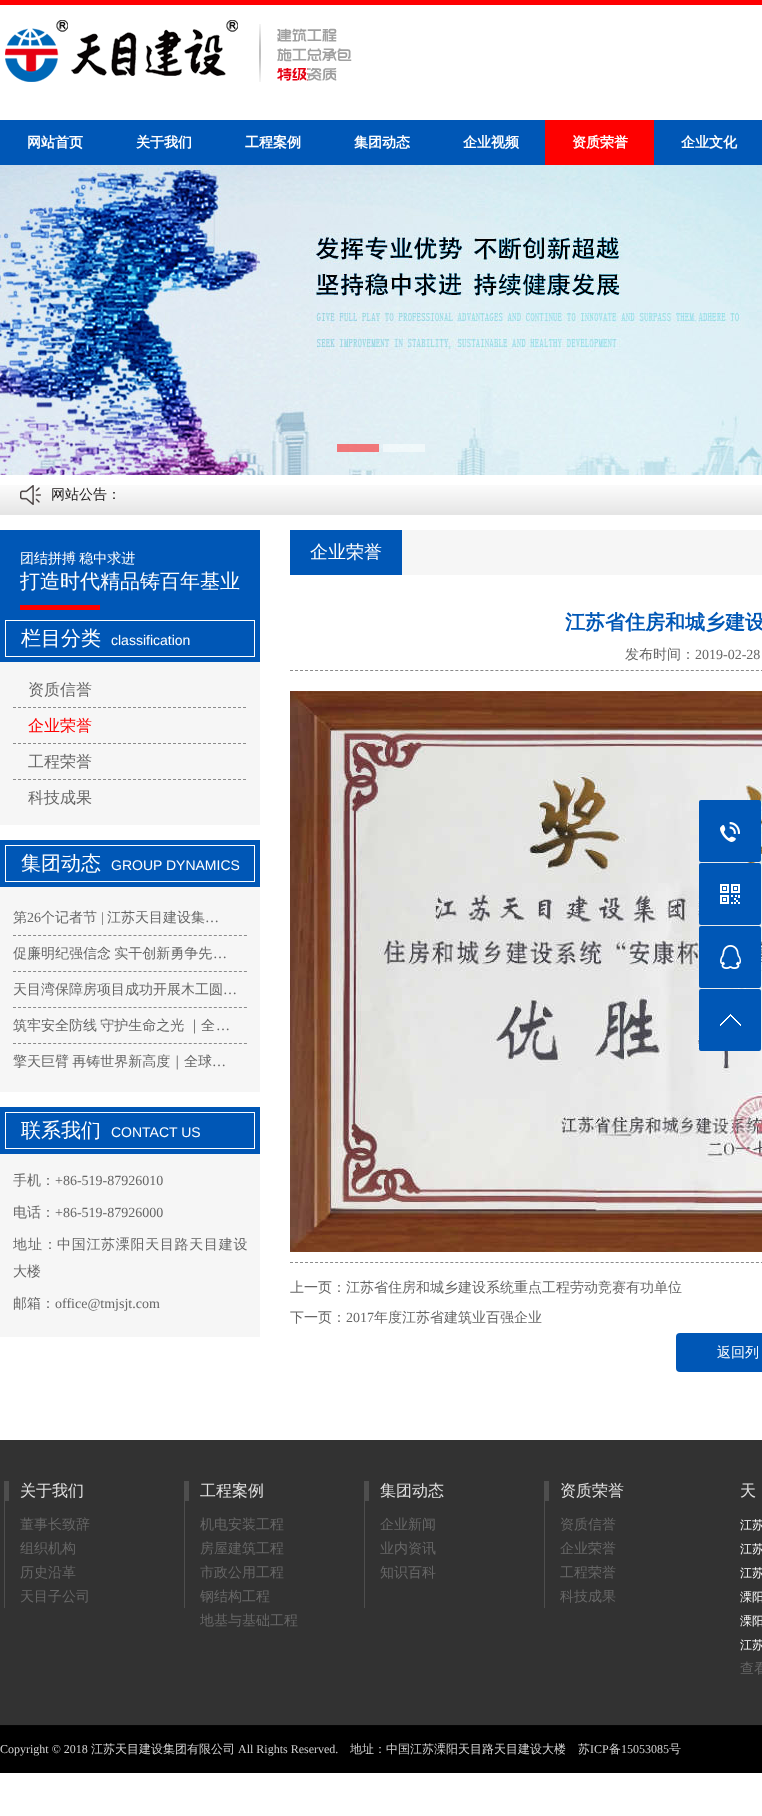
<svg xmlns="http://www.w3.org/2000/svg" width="762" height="1816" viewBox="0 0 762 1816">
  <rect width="100%" height="100%" fill="rgb(255,255,255)"/>
  <rect x="0" y="0" width="762" height="5" fill="rgb(254,0,2)"/>
  <image x="5" y="20" width="347" height="62" href="pic1.png"/>
  <rect x="0" y="120" width="762" height="45" fill="rgb(0,87,182)"/>
  <g font-family="WenQuanYi Zen Hei" font-size="14" font-weight="bold" fill="rgb(255,255,255)">
    <text x="27" y="147">网站首页</text>
    <text x="136" y="147">关于我们</text>
    <text x="245" y="147">工程案例</text>
    <text x="354" y="147">集团动态</text>
    <text x="463" y="147">企业视频</text>
  </g>
  <rect x="545" y="120" width="109" height="45" fill="rgb(254,0,0)"/>
  <g font-family="WenQuanYi Zen Hei" font-size="14" font-weight="bold" fill="rgb(255,255,255)">
    <text x="572" y="147">资质荣誉</text>
    <text x="681" y="147">企业文化</text>
  </g>
  <image x="0" y="165" width="762" height="310" href="pic2.png"/>
  <rect x="337" y="444" width="42" height="8" fill="rgba(255,0,0,0.5)"/>
  <rect x="383" y="444" width="42" height="8" fill="rgba(255,255,255,0.5)"/>
  <image x="0" y="485" width="762" height="30" href="pic3.png"/>
  <image x="20" y="485" width="21" height="20" href="pic4.png"/>
  <text x="51" y="499" font-family="WenQuanYi Zen Hei" font-size="14" font-weight="500" fill="rgb(26,23,23)">网站公告：</text>
  <rect x="0" y="662" width="260" height="163" fill="rgb(246,246,246)"/>
  <rect x="0" y="530" width="260" height="132" fill="rgb(0,87,182)"/>
  <text x="20" y="563" word-spacing="-1" font-family="WenQuanYi Zen Hei" font-size="14" font-weight="500" fill="rgb(255,255,255)">团结拼搏 稳中求进</text>
  <text x="20" y="588" font-family="WenQuanYi Zen Hei" font-size="20" font-weight="500" fill="rgb(255,255,255)">打造时代精品铸百年基业</text>
  <rect x="20" y="605" width="80" height="5" fill="rgb(254,0,0)"/>
  <rect x="5.5" y="620.5" width="249" height="36" fill="none" stroke="rgb(255,255,255)"/>
  <text x="21" y="645" font-family="WenQuanYi Zen Hei" font-size="20" font-weight="500" fill="rgb(255,255,255)">栏目分类</text>
  <text x="111" y="645" font-family="Liberation Sans" font-size="14" fill="rgb(255,255,255)">classification</text>
  <path d="M13 707.5H246" fill="none" stroke="rgb(139,139,139)" stroke-dasharray="3 2"/>
  <text x="28" y="695" font-family="WenQuanYi Zen Hei" font-size="16" font-weight="500" fill="rgb(102,102,102)">资质信誉</text>
  <path d="M13 743.5H246" fill="none" stroke="rgb(139,139,139)" stroke-dasharray="3 2"/>
  <text x="28" y="731" font-family="WenQuanYi Zen Hei" font-size="16" font-weight="500" fill="rgb(254,0,0)">企业荣誉</text>
  <path d="M13 779.5H246" fill="none" stroke="rgb(139,139,139)" stroke-dasharray="3 2"/>
  <g font-family="WenQuanYi Zen Hei" font-size="16" font-weight="500" fill="rgb(102,102,102)">
    <text x="28" y="767">工程荣誉</text>
    <text x="28" y="803">科技成果</text>
  </g>
  <rect x="0" y="840" width="260" height="47" fill="rgb(0,87,182)"/>
  <rect x="5.5" y="845.5" width="249" height="36" fill="none" stroke="rgb(255,255,255)"/>
  <text x="21" y="870" font-family="WenQuanYi Zen Hei" font-size="20" font-weight="500" fill="rgb(255,255,255)">集团动态</text>
  <text x="111" y="870" font-family="Liberation Sans" font-size="14" fill="rgb(255,255,255)">GROUP DYNAMICS</text>
  <rect x="0" y="887" width="260" height="205" fill="rgb(246,246,246)"/>
  <path d="M13 935.5H247" fill="none" stroke="rgb(139,139,139)" stroke-dasharray="3 2.02"/>
  <text x="13" y="922" font-family="WenQuanYi Zen Hei" font-size="14" font-weight="500" fill="rgb(102,102,102)">第</text>
  <text x="27" y="922" font-family="Liberation Serif" font-size="14" fill="rgb(102,102,102)">26</text>
  <text x="41" y="922" font-family="WenQuanYi Zen Hei" font-size="14" font-weight="500" fill="rgb(102,102,102)">个记者节</text>
  <text x="101" y="922" font-family="Liberation Serif" font-size="14" fill="rgb(102,102,102)">|</text>
  <text x="107" y="922" font-family="WenQuanYi Zen Hei" font-size="14" font-weight="500" fill="rgb(102,102,102)">江苏天目建设集</text>
  <text x="205" y="922" font-family="Liberation Serif" font-size="14" fill="rgb(102,102,102)">…</text>
  <path d="M13 971.5H247" fill="none" stroke="rgb(139,139,139)" stroke-dasharray="3 2.02"/>
  <text x="13" y="958" word-spacing="-1" font-family="WenQuanYi Zen Hei" font-size="14" font-weight="500" fill="rgb(102,102,102)">促廉明纪强信念 实干创新勇争先</text>
  <text x="213" y="958" font-family="Liberation Serif" font-size="14" fill="rgb(102,102,102)">…</text>
  <path d="M13 1007.5H247" fill="none" stroke="rgb(139,139,139)" stroke-dasharray="3 2.02"/>
  <text x="13" y="994" font-family="WenQuanYi Zen Hei" font-size="14" font-weight="500" fill="rgb(102,102,102)">天目湾保障房项目成功开展木工圆</text>
  <text x="223" y="994" font-family="Liberation Serif" font-size="14" fill="rgb(102,102,102)">…</text>
  <path d="M13 1043.5H247" fill="none" stroke="rgb(139,139,139)" stroke-dasharray="3 2.02"/>
  <text x="13" y="1030" word-spacing="-1" font-family="WenQuanYi Zen Hei" font-size="14" font-weight="500" fill="rgb(102,102,102)">筑牢安全防线 守护生命之光 ｜全</text>
  <text x="216" y="1030" font-family="Liberation Serif" font-size="14" fill="rgb(102,102,102)">…</text>
  <text x="13" y="1066" word-spacing="-1" font-family="WenQuanYi Zen Hei" font-size="14" font-weight="500" fill="rgb(102,102,102)">擎天巨臂 再铸世界新高度｜全球</text>
  <text x="212" y="1066" font-family="Liberation Serif" font-size="14" fill="rgb(102,102,102)">…</text>
  <rect x="0" y="1107" width="260" height="47" fill="rgb(0,87,182)"/>
  <rect x="5.5" y="1112.5" width="249" height="36" fill="none" stroke="rgb(255,255,255)"/>
  <text x="21" y="1137" font-family="WenQuanYi Zen Hei" font-size="20" font-weight="500" fill="rgb(255,255,255)">联系我们</text>
  <text x="111" y="1137" font-family="Liberation Sans" font-size="14" fill="rgb(255,255,255)">CONTACT US</text>
  <rect x="0" y="1154" width="260" height="183" fill="rgb(246,246,246)"/>
  <text x="13" y="1185" font-family="WenQuanYi Zen Hei" font-size="14" font-weight="500" fill="rgb(102,102,102)">手机：</text>
  <text x="55" y="1185" font-family="Liberation Serif" font-size="14" fill="rgb(102,102,102)">+86-519-87926010</text>
  <text x="13" y="1217" font-family="WenQuanYi Zen Hei" font-size="14" font-weight="500" fill="rgb(102,102,102)">电话：</text>
  <text x="55" y="1217" font-family="Liberation Serif" font-size="14" fill="rgb(102,102,102)">+86-519-87926000</text>
  <text x="13" y="1249" font-family="WenQuanYi Zen Hei" font-size="14" font-weight="500" letter-spacing="1" fill="rgb(102,102,102)">地址：</text>
  <text x="57" y="1249" font-family="WenQuanYi Zen Hei" font-size="14" font-weight="500" letter-spacing="0.7" fill="rgb(102,102,102)">中国江苏溧阳天目路天目建设</text>
  <g font-family="WenQuanYi Zen Hei" font-size="14" font-weight="500" fill="rgb(102,102,102)">
    <text x="13" y="1276">大楼</text>
    <text x="13" y="1308">邮箱：</text>
  </g>
  <text x="55" y="1308" font-family="Liberation Serif" font-size="14" fill="rgb(102,102,102)">office@tmjsjt.com</text>
  <rect x="402" y="530" width="360" height="45" fill="rgb(246,246,246)"/>
  <rect x="290" y="530" width="112" height="45" fill="rgb(0,87,182)"/>
  <text x="310" y="558" font-family="WenQuanYi Zen Hei" font-size="18" font-weight="500" fill="rgb(255,255,255)">企业荣誉</text>
  <text x="565" y="629" font-family="WenQuanYi Zen Hei" font-size="20" font-weight="bold" fill="rgb(0,87,182)">江苏省住房和城乡建设</text>
  <path d="M290 670.5H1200" fill="none" stroke="rgb(139,139,139)" stroke-dasharray="3 2.01"/>
  <text x="625" y="659" font-family="WenQuanYi Zen Hei" font-size="14" font-weight="500" fill="rgb(102,102,102)">发布时间：</text>
  <text x="695" y="659" font-family="Liberation Serif" font-size="14" fill="rgb(102,102,102)">2019-02-28</text>
  <image x="290" y="691" width="472" height="561" href="pic5.png"/>
  <path d="M290 1262.5H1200" fill="none" stroke="rgb(139,139,139)" stroke-dasharray="3 2.01"/>
  <g font-family="WenQuanYi Zen Hei" font-size="14" font-weight="500" fill="rgb(102,102,102)">
    <text x="290" y="1292">上一页：江苏省住房和城乡建设系统重点工程劳动竞赛有功单位</text>
    <text x="290" y="1322">下一页：</text>
  </g>
  <text x="346" y="1322" font-family="Liberation Serif" font-size="14" fill="rgb(102,102,102)">2017</text>
  <text x="374" y="1322" font-family="WenQuanYi Zen Hei" font-size="14" font-weight="500" fill="rgb(102,102,102)">年度江苏省建筑业百强企业</text>
  <rect x="676" y="1333" width="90" height="39" rx="4" fill="rgb(0,87,182)"/>
  <text x="717" y="1357" font-family="WenQuanYi Zen Hei" font-size="14" font-weight="500" fill="rgb(255,255,255)">返回列</text>
  <rect x="699" y="800" width="62" height="62" rx="2" fill="rgb(0,87,182)"/>
  <image x="720" y="822" width="20" height="20" href="pic6.png"/>
  <rect x="699" y="863" width="62" height="62" rx="2" fill="rgb(0,87,182)"/>
  <image x="720" y="884" width="20" height="20" href="pic7.png"/>
  <rect x="699" y="926" width="62" height="62" rx="2" fill="rgb(0,87,182)"/>
  <image x="720" y="945" width="21" height="24" href="pic8.png"/>
  <rect x="699" y="989" width="62" height="62" rx="2" fill="rgb(0,87,182)"/>
  <image x="720" y="1014" width="21" height="12" href="pic9.png"/>
  <image x="0" y="1440" width="762" height="333" href="pic10.png"/>
  <image x="4" y="1481" width="545" height="127" href="pic11.png"/>
  <text x="20" y="1496" font-family="WenQuanYi Zen Hei" font-size="16" font-weight="500" fill="rgb(224,224,224)">关于我们</text>
  <g font-family="WenQuanYi Zen Hei" font-size="14" font-weight="500" fill="rgb(102,102,102)">
    <text>
      <tspan x="20" y="1529">董事长致辞</tspan>
      <tspan x="20" y="1553">组织机构</tspan>
      <tspan x="20" y="1577">历史沿革</tspan>
      <tspan x="20" y="1601">天目子公司</tspan>
    </text>
  </g>
  <text x="200" y="1496" font-family="WenQuanYi Zen Hei" font-size="16" font-weight="500" fill="rgb(224,224,224)">工程案例</text>
  <g font-family="WenQuanYi Zen Hei" font-size="14" font-weight="500" fill="rgb(102,102,102)">
    <text>
      <tspan x="200" y="1529">机电安装工程</tspan>
      <tspan x="200" y="1553">房屋建筑工程</tspan>
      <tspan x="200" y="1577">市政公用工程</tspan>
      <tspan x="200" y="1601">钢结构工程</tspan>
      <tspan x="200" y="1625">地基与基础工程</tspan>
    </text>
  </g>
  <text x="380" y="1496" font-family="WenQuanYi Zen Hei" font-size="16" font-weight="500" fill="rgb(224,224,224)">集团动态</text>
  <g font-family="WenQuanYi Zen Hei" font-size="14" font-weight="500" fill="rgb(102,102,102)">
    <text>
      <tspan x="380" y="1529">企业新闻</tspan>
      <tspan x="380" y="1553">业内资讯</tspan>
      <tspan x="380" y="1577">知识百科</tspan>
    </text>
  </g>
  <text x="560" y="1496" font-family="WenQuanYi Zen Hei" font-size="16" font-weight="500" fill="rgb(224,224,224)">资质荣誉</text>
  <g font-family="WenQuanYi Zen Hei" font-size="14" font-weight="500" fill="rgb(102,102,102)">
    <text>
      <tspan x="560" y="1529">资质信誉</tspan>
      <tspan x="560" y="1553">企业荣誉</tspan>
      <tspan x="560" y="1577">工程荣誉</tspan>
      <tspan x="560" y="1601">科技成果</tspan>
    </text>
  </g>
  <text x="740" y="1496" font-family="WenQuanYi Zen Hei" font-size="16" font-weight="500" fill="rgb(224,224,224)">天</text>
  <g font-family="WenQuanYi Zen Hei" font-size="12" font-weight="500" fill="rgb(255,255,255)">
    <text x="740" y="1529">江苏</text>
    <text x="740" y="1553">江苏</text>
    <text x="740" y="1577">江苏</text>
    <text x="740" y="1601">溧阳</text>
    <text x="740" y="1625">溧阳</text>
    <text x="740" y="1649">江苏</text>
  </g>
  <text x="740" y="1673" font-family="WenQuanYi Zen Hei" font-size="14" font-weight="500" fill="rgb(102,102,102)">查看</text>
  <text x="0" y="1753" font-family="Liberation Serif" font-size="12" fill="rgb(209,209,209)">Copyright © 2018</text>
  <text x="91" y="1753" font-family="WenQuanYi Zen Hei" font-size="12" font-weight="500" fill="rgb(209,209,209)">江苏天目建设集团有限公司</text>
  <text x="238" y="1753" font-family="Liberation Serif" font-size="12" fill="rgb(209,209,209)">All Rights Reserved.</text>
  <g font-family="WenQuanYi Zen Hei" font-size="12" font-weight="500" fill="rgb(209,209,209)">
    <text x="350" y="1753">地址：中国江苏溧阳天目路天目建设大楼</text>
    <text x="578" y="1753">苏</text>
  </g>
  <text x="590" y="1753" font-family="Liberation Serif" font-size="12" fill="rgb(209,209,209)">ICP</text>
  <text x="609" y="1753" font-family="WenQuanYi Zen Hei" font-size="12" font-weight="500" fill="rgb(209,209,209)">备</text>
  <text x="621" y="1753" font-family="Liberation Serif" font-size="12" fill="rgb(209,209,209)">15053085</text>
  <text x="669" y="1753" font-family="WenQuanYi Zen Hei" font-size="12" font-weight="500" fill="rgb(209,209,209)">号</text>
</svg>
